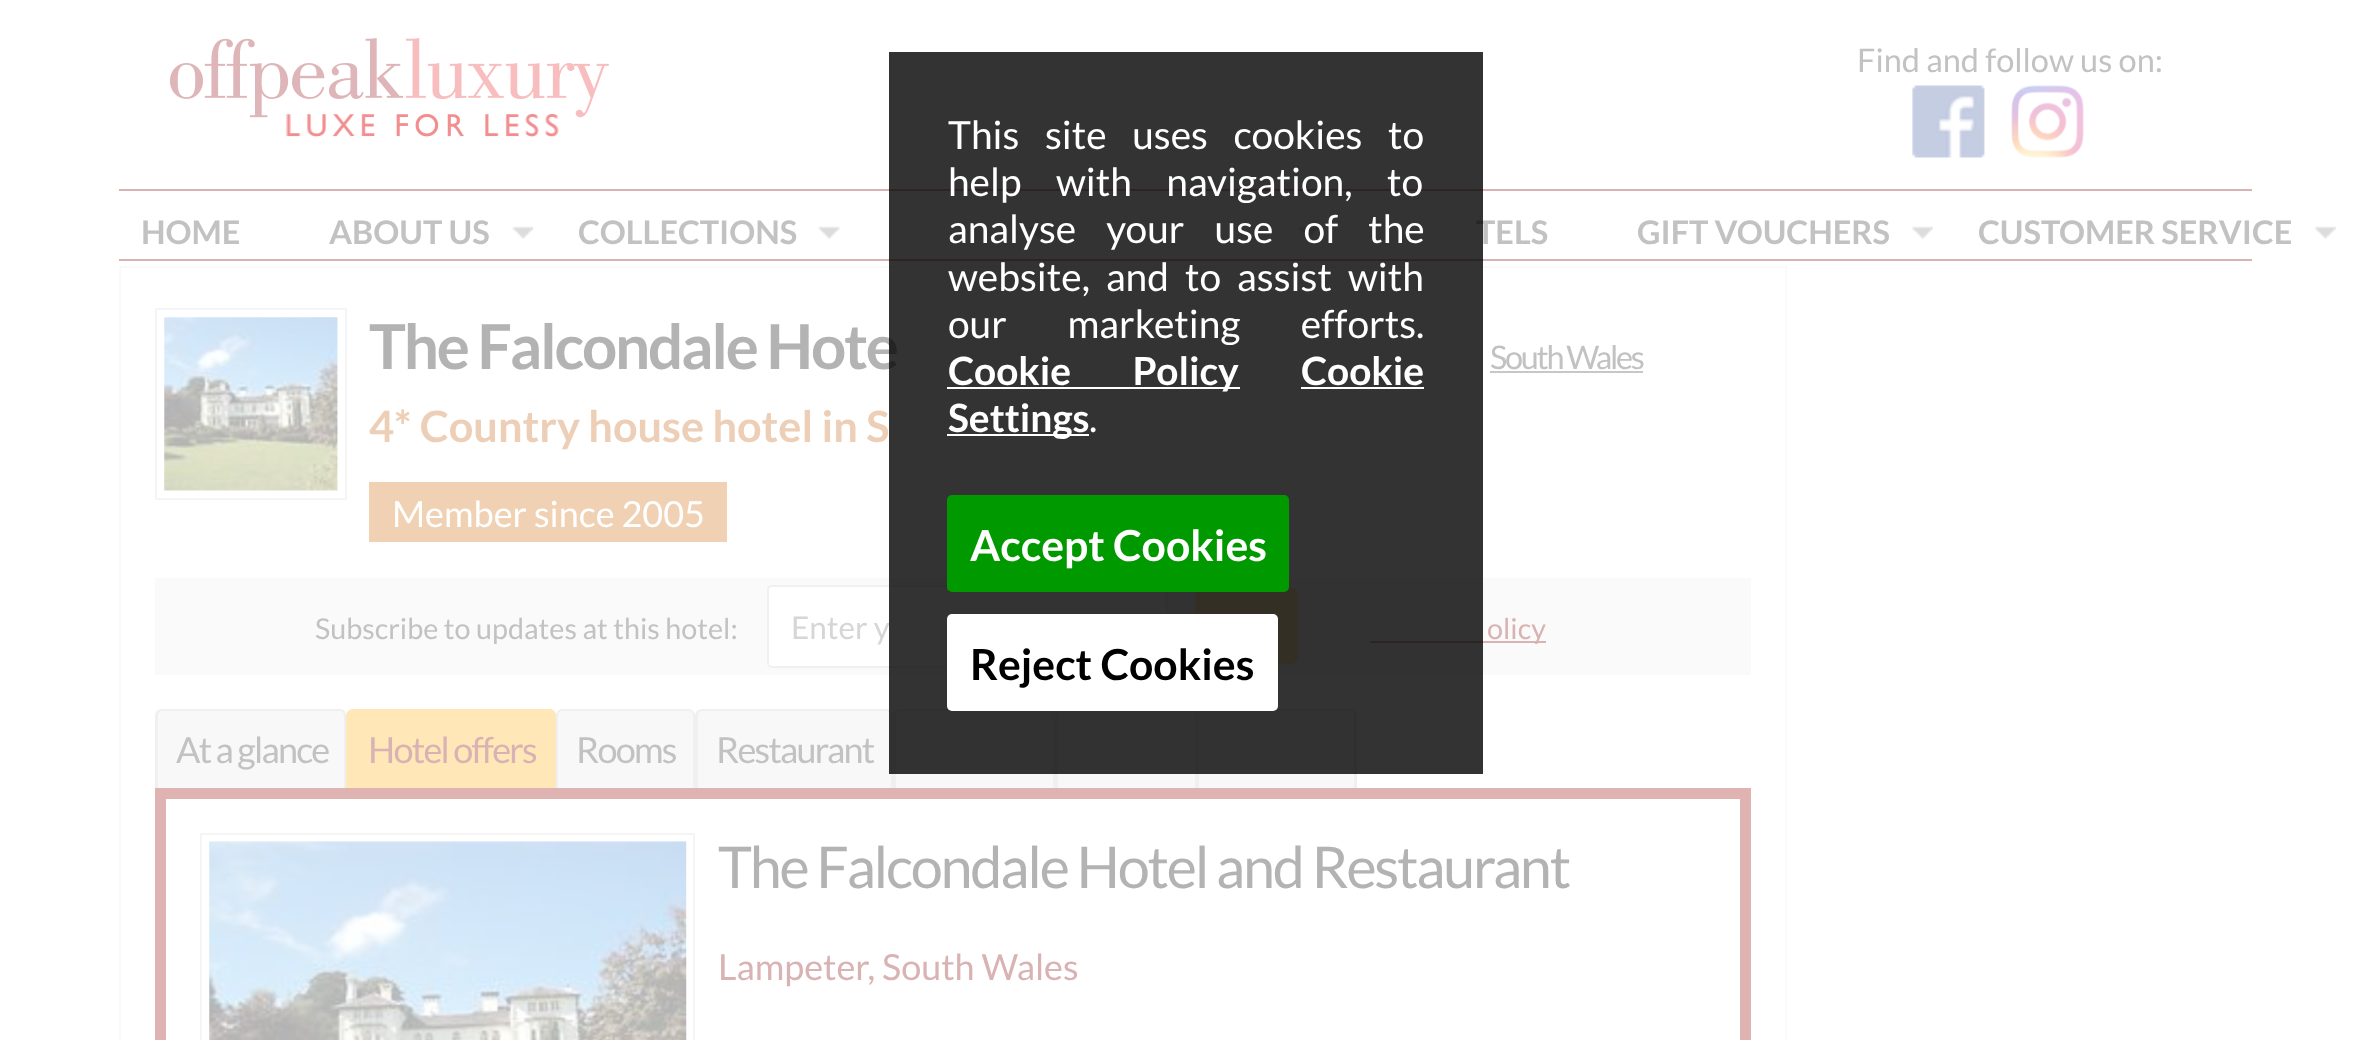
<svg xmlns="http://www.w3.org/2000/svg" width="2370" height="1040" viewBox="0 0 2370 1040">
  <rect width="100%" height="100%" fill="rgb(255,255,255)"/>
  <image x="170" y="38" width="439" height="99" href="pic1.png"/>
  <text x="1857" y="72" font-family="Lato" font-size="32.5" fill="rgb(194,194,194)">Find and follow us on:</text>
  <image x="1912" y="85" width="73" height="73" href="pic2.png"/>
  <image x="2011" y="85" width="73" height="73" href="pic3.png"/>
  <rect x="119" y="189" width="2133" height="2" fill="rgb(217,179,179)"/>
  <rect x="119" y="259" width="2133" height="2" fill="rgb(217,179,179)"/>
  <g font-family="Lato" font-size="32.5" font-weight="bold" fill="rgb(194,194,194)">
    <text x="141" y="244">HOME</text>
    <text x="329" y="244">ABOUT US</text>
  </g>
  <image x="512" y="226" width="22" height="13" href="pic4.png"/>
  <text x="578" y="244" font-family="Lato" font-size="32.5" font-weight="bold" fill="rgb(194,194,194)">COLLECTIONS</text>
  <image x="818" y="226" width="22" height="13" href="pic5.png"/>
  <image x="1028" y="226" width="21" height="13" href="pic6.png"/>
  <image x="1298" y="226" width="21" height="13" href="pic6.png"/>
  <g font-family="Lato" font-size="32.5" font-weight="bold" fill="rgb(194,194,194)">
    <text x="1476" y="244">TELS</text>
    <text x="1637" y="244">GIFT VOUCHERS</text>
  </g>
  <image x="1912" y="226" width="21" height="13" href="pic7.png"/>
  <text x="1978" y="244" font-family="Lato" font-size="32.5" font-weight="bold" fill="rgb(194,194,194)">CUSTOMER SERVICE</text>
  <image x="2315" y="226" width="21" height="13" href="pic8.png"/>
  <rect x="120" y="267" width="1666" height="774" fill="none" stroke="rgb(250,250,250)" stroke-width="2"/>
  <rect x="156" y="309" width="190" height="190" fill="none" stroke="rgb(245,245,245)" stroke-width="2"/>
  <image x="164" y="317" width="174" height="174" href="pic9.png"/>
  <text x="369" y="369" font-family="Lato" font-size="62" font-weight="bold" letter-spacing="-2.25" fill="rgb(179,179,179)">The Falcondale Hote</text>
  <text x="1490" y="369" font-family="Lato" font-size="32.5" letter-spacing="-2.25" fill="rgb(194,194,194)">South Wales</text>
  <rect x="1490" y="371" width="153" height="2" fill="rgb(199,199,199)"/>
  <text x="369" y="442" font-family="Lato" font-size="43.25" font-weight="bold" fill="rgb(237,207,183)">4* Country house hotel in S</text>
  <rect x="369" y="482" width="358" height="60" fill="rgb(240,209,179)"/>
  <text x="392" y="527" font-family="Lato" font-size="36" fill="rgb(255,255,255)">Member since 2005</text>
  <rect x="155" y="578" width="1596" height="97" fill="rgb(250,250,250)"/>
  <text x="315" y="639" font-family="Lato" font-size="28.75" fill="rgb(194,194,194)">Subscribe to updates at this hotel:</text>
  <rect x="768" y="586" width="399" height="81" rx="4" fill="rgb(255,255,255)" stroke="rgb(240,240,240)" stroke-width="2"/>
  <text x="791" y="639" font-family="Lato" font-size="31.5" fill="rgb(214,214,214)">Enter y</text>
  <rect x="1195" y="587" width="103" height="77" rx="7" fill="rgb(255,233,186)"/>
  <rect x="1370" y="641" width="176" height="2" fill="rgb(217,179,179)"/>
  <text x="1487" y="639" font-family="Lato" font-size="28.75" fill="rgb(217,179,179)">olicy</text>
  <path d="M162 709H340C344 709 347 712 347 716V788H155V716C155 712 158 709 162 709Z" fill="rgb(248,248,248)"/>
  <path d="M162 709H340C343 709 346 712 346 716V788H155V716C155 712 158 709 162 709ZM162 711H340C342 711 344 713 344 716V788H158V716C158 713 160 711 162 711Z" fill="rgb(240,240,240)" fill-rule="evenodd"/>
  <text x="176" y="763" font-family="Lato" font-size="36" letter-spacing="-1.75" fill="rgb(194,194,194)">At a glance</text>
  <path d="M354 709H549C553 709 556 712 556 716V788H347V716C347 712 350 709 354 709Z" fill="rgb(255,231,183)"/>
  <path d="M353 709H549C553 709 556 712 556 716V788H346V716C346 712 350 709 353 709ZM353 711H549C551 711 554 713 554 716V788H349V716C349 713 351 711 353 711Z" fill="rgb(255,231,183)" fill-rule="evenodd"/>
  <text x="368" y="763" font-family="Lato" font-size="36" letter-spacing="-1.75" fill="rgb(217,179,179)">Hotel offers</text>
  <path d="M563 709H688C692 709 695 712 695 716V788H556V716C556 712 559 709 563 709Z" fill="rgb(248,248,248)"/>
  <path d="M562 709H688C692 709 695 712 695 716V788H556V716C556 712 559 709 562 709ZM562 711H688C691 711 693 713 693 716V788H558V716C558 713 560 711 562 711Z" fill="rgb(240,240,240)" fill-rule="evenodd"/>
  <text x="576" y="763" font-family="Lato" font-size="36" letter-spacing="-1.75" fill="rgb(194,194,194)">Rooms</text>
  <path d="M702 709H886C890 709 893 712 893 716V788H695V716C695 712 698 709 702 709Z" fill="rgb(248,248,248)"/>
  <path d="M702 709H886C890 709 893 712 893 716V788H695V716C695 712 698 709 702 709ZM702 711H886C889 711 891 713 891 716V788H698V716C698 713 700 711 702 711Z" fill="rgb(240,240,240)" fill-rule="evenodd"/>
  <text x="716" y="763" font-family="Lato" font-size="36" letter-spacing="-1.75" fill="rgb(194,194,194)">Restaurant</text>
  <path d="M900 709H1048C1052 709 1055 712 1055 716V788H893V716C893 712 896 709 900 709Z" fill="rgb(248,248,248)"/>
  <path d="M900 709H1048C1052 709 1055 712 1055 716V788H893V716C893 712 896 709 900 709ZM900 711H1048C1051 711 1053 713 1053 716V788H896V716C896 713 898 711 900 711Z" fill="rgb(240,240,240)" fill-rule="evenodd"/>
  <path d="M1062 709H1190C1194 709 1197 712 1197 716V788H1055V716C1055 712 1058 709 1062 709Z" fill="rgb(248,248,248)"/>
  <path d="M1062 709H1190C1194 709 1197 712 1197 716V788H1055V716C1055 712 1058 709 1062 709ZM1062 711H1190C1193 711 1195 713 1195 716V788H1058V716C1058 713 1060 711 1062 711Z" fill="rgb(240,240,240)" fill-rule="evenodd"/>
  <path d="M1204 709H1350C1354 709 1357 712 1357 716V788H1197V716C1197 712 1200 709 1204 709Z" fill="rgb(248,248,248)"/>
  <path d="M1204 709H1350C1354 709 1357 712 1357 716V788H1197V716C1197 712 1200 709 1204 709ZM1204 711H1350C1352 711 1354 713 1354 716V788H1199V716C1199 713 1201 711 1204 711Z" fill="rgb(240,240,240)" fill-rule="evenodd"/>
  <rect x="160.5" y="793.5" width="1585" height="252" fill="none" stroke="rgb(224,179,179)" stroke-width="11"/>
  <rect x="201" y="834" width="493" height="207" fill="none" stroke="rgb(245,245,245)" stroke-width="2"/>
  <image x="209" y="841" width="478" height="199" href="pic10.png"/>
  <text x="718" y="888" font-family="Lato" font-size="57.6" letter-spacing="-2.25" fill="rgb(179,179,179)">The Falcondale Hotel and Restaurant</text>
  <text x="718" y="980" font-family="Lato" font-size="36" fill="rgb(217,179,179)">Lampeter, South Wales</text>
  <rect x="889" y="52" width="594" height="722" fill="rgba(0,0,0,0.8)"/>
  <g font-family="Lato" font-size="38.9" fill="rgb(255,255,255)">
    <text>
      <tspan x="948" y="149" word-spacing="18">This site uses cookies to</tspan>
      <tspan x="948" y="196" word-spacing="27">help with navigation, to</tspan>
      <tspan x="948" y="243" word-spacing="22.5">analyse your use of the</tspan>
      <tspan x="948" y="291" word-spacing="8.5">website, and to assist with</tspan>
      <tspan x="948" y="338" word-spacing="53">our marketing efforts.</tspan>
    </text>
  </g>
  <rect x="947" y="387" width="293" height="2" fill="rgb(255,255,255)"/>
  <g font-family="Lato" font-size="38.9" font-weight="bold" fill="rgb(255,255,255)">
    <text x="948" y="385" word-spacing="54">Cookie Policy</text>
    <text x="1301" y="385">Cookie</text>
  </g>
  <rect x="1301" y="387" width="123" height="2" fill="rgb(255,255,255)"/>
  <rect x="947" y="434" width="142" height="2" fill="rgb(255,255,255)"/>
  <text x="948" y="432" font-family="Lato" font-size="38.9" font-weight="bold" fill="rgb(255,255,255)">Settings</text>
  <text x="1089" y="432" font-family="Lato" font-size="38.9" fill="rgb(255,255,255)">.</text>
  <rect x="947" y="495" width="342" height="97" rx="5" fill="rgb(0,153,0)"/>
  <text x="970" y="561" font-family="Lato" font-size="42.75" font-weight="bold" fill="rgb(255,255,255)">Accept Cookies</text>
  <rect x="947" y="614" width="331" height="97" rx="5" fill="rgb(255,255,255)"/>
  <text x="970" y="680" font-family="Lato" font-size="42.75" font-weight="bold" fill="rgb(0,0,0)">Reject Cookies</text>
</svg>
